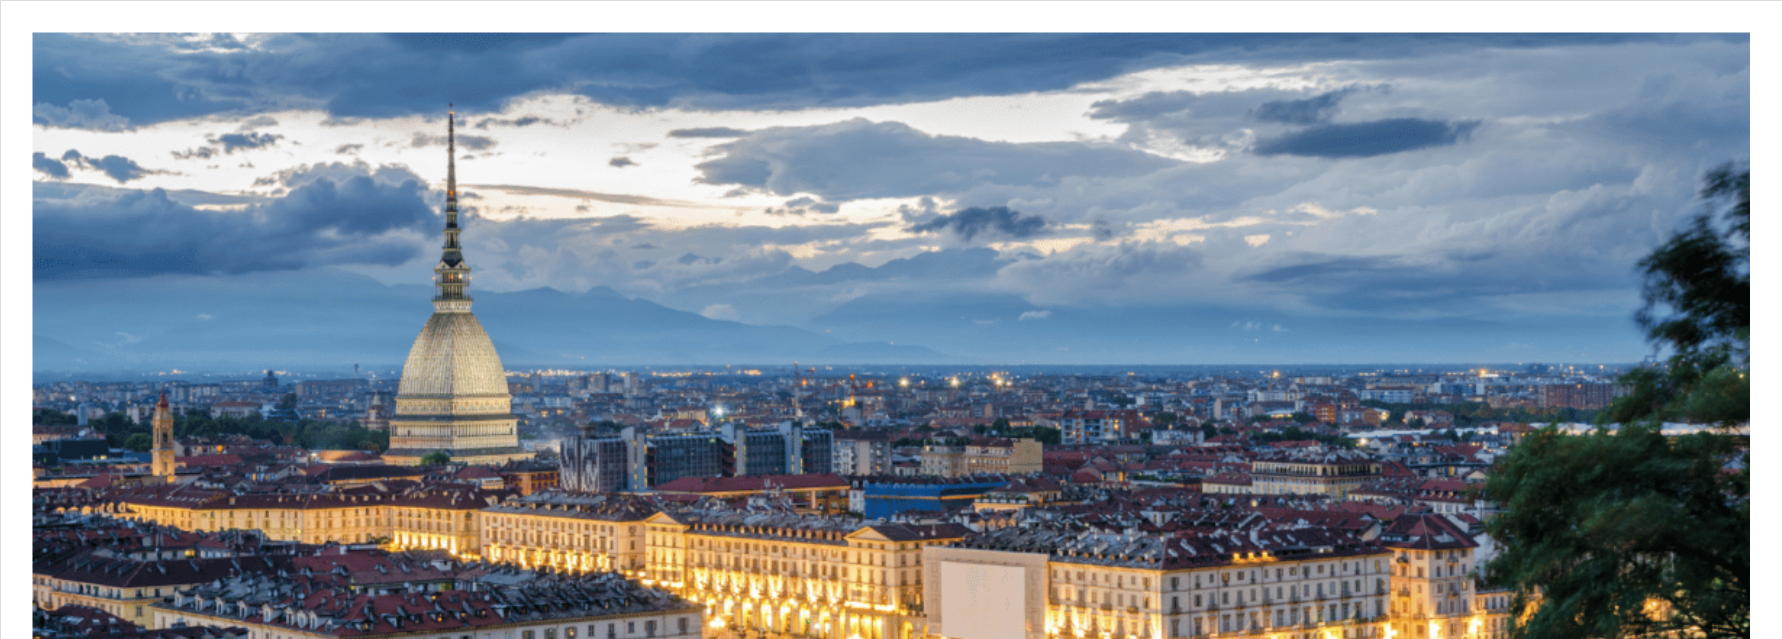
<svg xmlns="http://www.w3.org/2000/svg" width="1782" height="639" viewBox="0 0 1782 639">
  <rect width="100%" height="100%" fill="rgb(255,255,255)"/>
  <rect x="0.5" y="0.5" width="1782" height="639" fill="none" stroke="rgb(220,220,222)"/>
  <image x="32" y="32" width="1718" height="607" href="pic1.png"/>
</svg>
